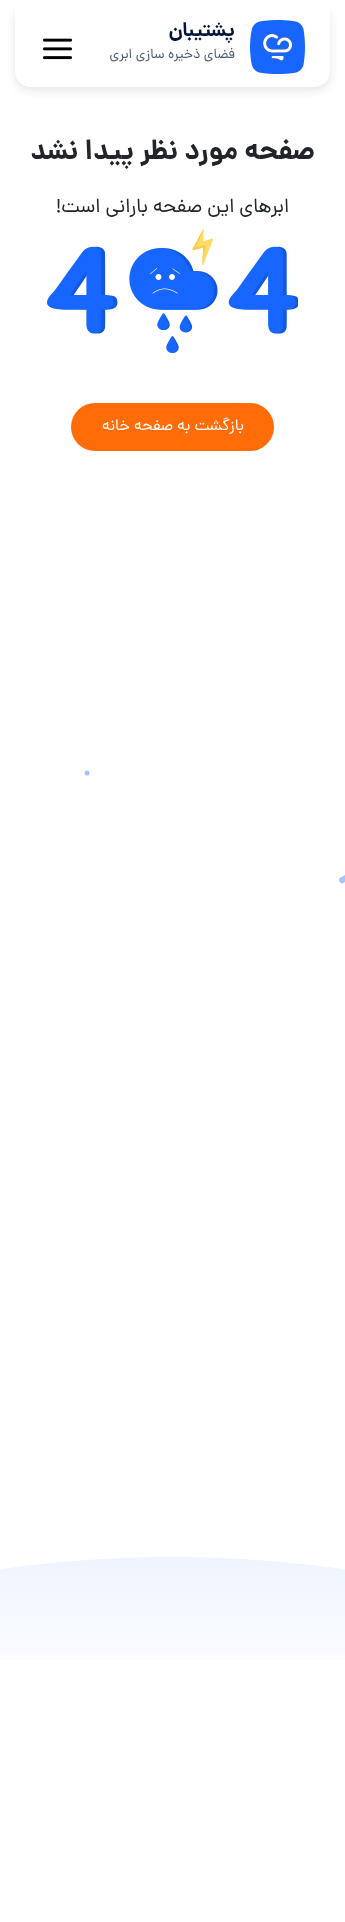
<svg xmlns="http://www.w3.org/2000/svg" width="345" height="1922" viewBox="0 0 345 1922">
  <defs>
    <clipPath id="clip1"><path d="M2 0H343V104H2ZM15 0H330V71C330 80 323 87 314 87H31C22 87 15 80 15 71Z" clip-rule="evenodd"/></clipPath>
  </defs>
  <rect width="100%" height="100%" fill="rgb(255,255,255)"/>
  <image x="84" y="770" width="261" height="114" href="pic1.png"/>
  <g clip-path="url(#clip1)">
    <rect x="15" y="4" width="315" height="87" rx="16" fill="rgba(1,21,58,0.1)" filter="blur(4px)"/>
  </g>
  <image x="250" y="20" width="55" height="54" href="pic2.png"/>
  <text x="235" y="36" font-family="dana" font-size="20" font-weight="bold" direction="rtl" fill="rgb(1,21,58)">پشتیبان</text>
  <text x="235" y="58" font-family="dana" font-size="14" direction="rtl" fill="rgb(77,91,117)">فضای ذخیره سازی ابری</text>
  <image x="43" y="38" width="29" height="22" href="pic3.png"/>
  <image x="0" y="1557" width="345" height="103" href="pic4.png"/>
  <text x="315" y="159" font-family="dana" font-size="28" font-weight="bold" direction="rtl" fill="rgb(33,37,41)">صفحه مورد نظر پیدا نشد</text>
  <text x="289" y="212" font-family="dana" font-size="20" direction="rtl" fill="rgb(33,37,41)">ابرهای این صفحه بارانی است!</text>
  <image x="47" y="229" width="251" height="124" href="pic5.png"/>
  <rect x="71" y="403" width="203" height="48" rx="24" fill="rgb(255,108,8)"/>
  <text x="244" y="430" font-family="dana" font-size="16" direction="rtl" fill="rgb(255,255,255)">بازگشت به صفحه خانه</text>
</svg>
